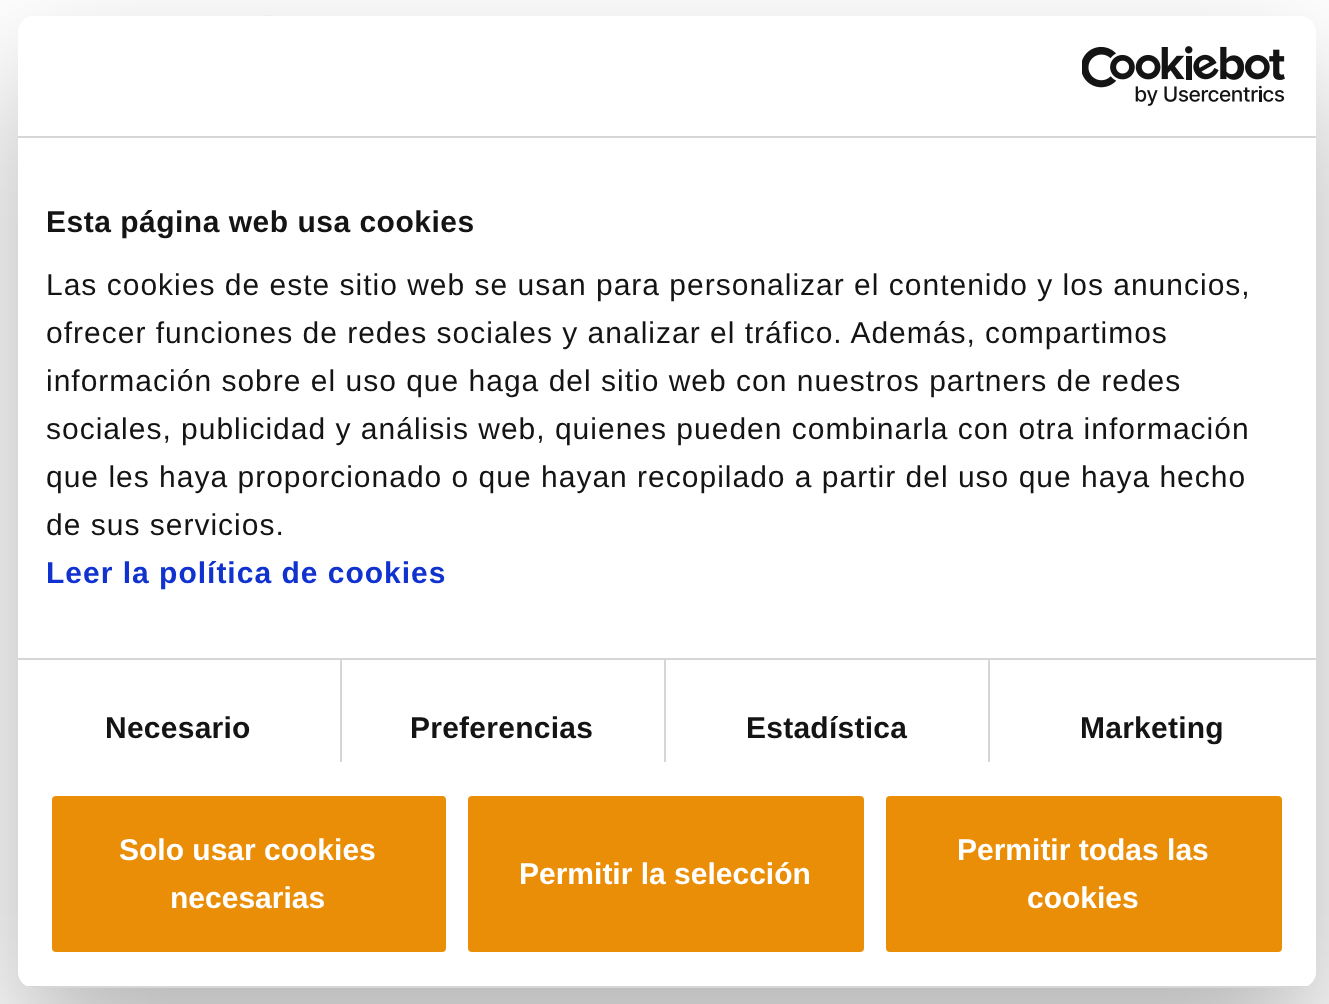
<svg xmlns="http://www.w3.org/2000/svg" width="1329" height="1004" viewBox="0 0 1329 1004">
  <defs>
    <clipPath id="clip1"><rect x="18" y="16" width="1298" height="972" rx="16"/></clipPath>
  </defs>
  <rect width="100%" height="100%" fill="rgb(255,255,255)"/>
  <image x="117" y="15" width="658" height="1" href="pic1.png"/>
  <rect x="18" y="80" width="1298" height="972" rx="16" fill="rgba(0,0,0,0.3)" filter="blur(68px)"/>
  <rect x="18" y="16" width="1298" height="972" rx="16" fill="rgb(255,255,255)"/>
  <rect x="18" y="136" width="1298" height="2" fill="rgb(214,214,214)"/>
  <image x="1082" y="46" width="203" height="60" href="pic2.png"/>
  <rect x="18" y="658" width="1298" height="2" fill="rgb(214,214,214)"/>
  <text x="46" y="232" font-family="Liberation Sans" font-size="30" font-weight="bold" letter-spacing="0.5" fill="rgb(20,20,20)">Esta página web usa cookies</text>
  <g font-family="Liberation Sans" font-size="30" letter-spacing="1" fill="rgb(20,20,20)">
    <text>
      <tspan x="46" y="295">Las cookies de este sitio web se usan para personalizar el contenido y los anuncios,</tspan>
      <tspan x="46" y="343">ofrecer funciones de redes sociales y analizar el tráfico. Además, compartimos</tspan>
      <tspan x="46" y="391">información sobre el uso que haga del sitio web con nuestros partners de redes</tspan>
      <tspan x="46" y="439">sociales, publicidad y análisis web, quienes pueden combinarla con otra información</tspan>
      <tspan x="46" y="487">que les haya proporcionado o que hayan recopilado a partir del uso que haya hecho</tspan>
      <tspan x="46" y="535">de sus servicios.</tspan>
    </text>
  </g>
  <text x="46" y="583" font-family="Liberation Sans" font-size="30" font-weight="bold" letter-spacing="1" fill="rgb(16,50,207)">Leer la política de cookies</text>
  <rect x="340" y="660" width="2" height="102" fill="rgb(214,214,214)"/>
  <text x="105" y="738" font-family="Liberation Sans" font-size="30" font-weight="bold" letter-spacing="0.25" fill="rgb(20,20,20)">Necesario</text>
  <rect x="664" y="660" width="2" height="102" fill="rgb(214,214,214)"/>
  <text x="410" y="738" font-family="Liberation Sans" font-size="30" font-weight="bold" letter-spacing="0.25" fill="rgb(20,20,20)">Preferencias</text>
  <rect x="988" y="660" width="2" height="102" fill="rgb(214,214,214)"/>
  <g font-family="Liberation Sans" font-size="30" font-weight="bold" letter-spacing="0.25" fill="rgb(20,20,20)">
    <text x="746" y="738">Estadística</text>
    <text x="1080" y="738">Marketing</text>
  </g>
  <g clip-path="url(#clip1)">
    <rect x="18" y="986" width="1298" height="2" fill="rgb(214,214,214)"/>
  </g>
  <rect x="50" y="794" width="398" height="160" rx="6" fill="rgb(234,142,8)" stroke="rgb(255,255,255)" stroke-width="4"/>
  <g font-family="Liberation Sans" font-size="30" font-weight="bold" fill="rgb(255,255,255)">
    <text x="119" y="860">Solo usar cookies</text>
    <text x="170" y="908">necesarias</text>
  </g>
  <rect x="466" y="794" width="400" height="160" rx="6" fill="rgb(234,142,8)" stroke="rgb(255,255,255)" stroke-width="4"/>
  <text x="519" y="884" font-family="Liberation Sans" font-size="30" font-weight="bold" fill="rgb(255,255,255)">Permitir la selección</text>
  <rect x="884" y="794" width="400" height="160" rx="6" fill="rgb(234,142,8)" stroke="rgb(255,255,255)" stroke-width="4"/>
  <g font-family="Liberation Sans" font-size="30" font-weight="bold" fill="rgb(255,255,255)">
    <text x="957" y="860">Permitir todas las</text>
    <text x="1027" y="908">cookies</text>
  </g>
</svg>
